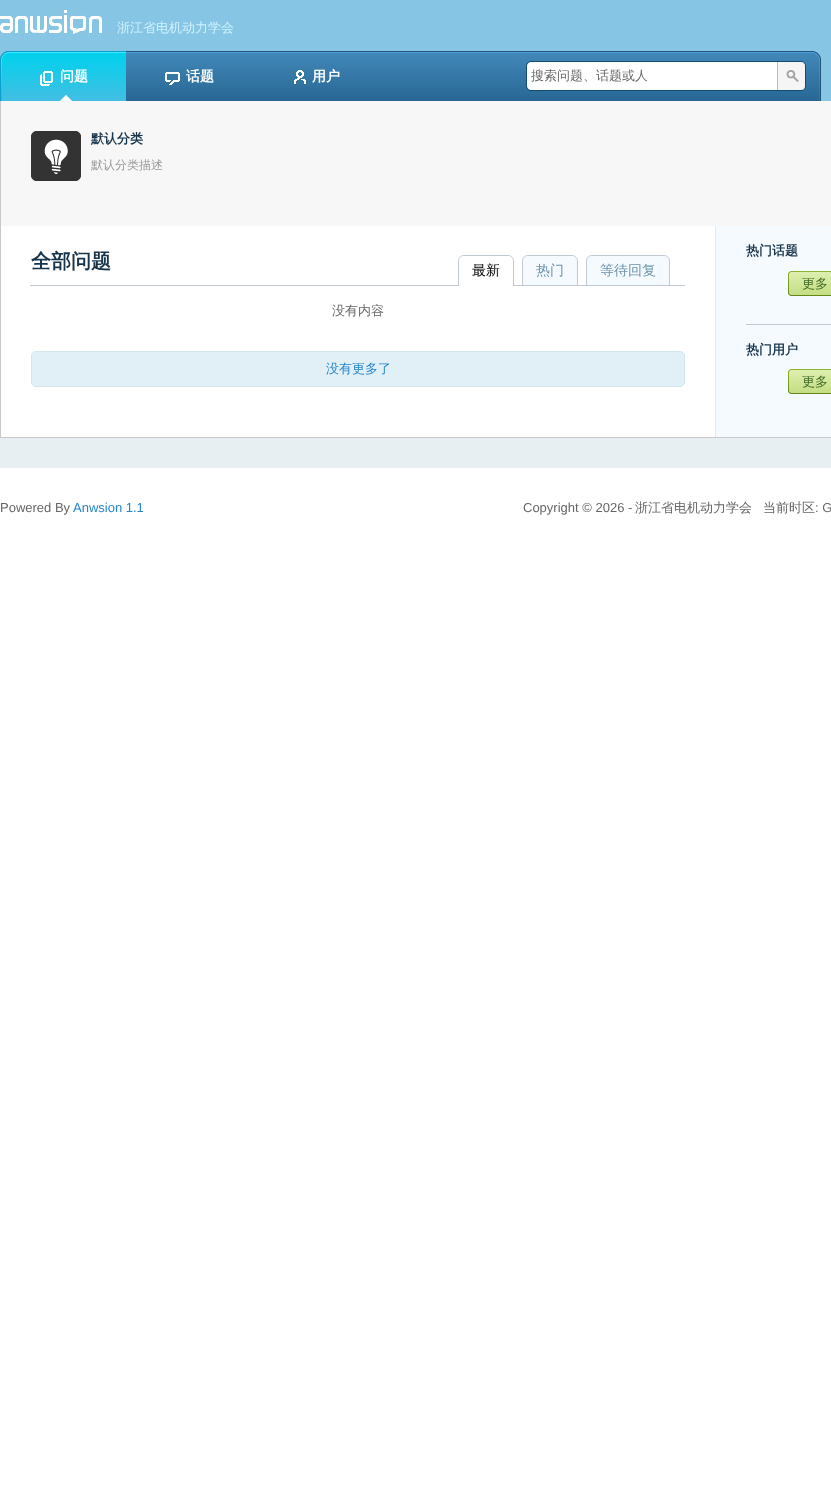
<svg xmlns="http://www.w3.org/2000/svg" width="831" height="1500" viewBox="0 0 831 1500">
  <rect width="100%" height="100%" fill="rgb(255,255,255)"/>
  <rect x="0" y="438" width="831" height="30" fill="rgb(231,239,243)"/>
  <rect x="0" y="0" width="831" height="101" fill="rgb(134,197,227)"/>
  <image x="0" y="10" width="102" height="25" href="pic1.png"/>
  <text x="117" y="32" font-family="WenQuanYi Zen Hei" font-size="13" font-weight="500" fill="rgb(207,241,255)">浙江省电机动力学会</text>
  <image x="0" y="51" width="253" height="50" href="pic2.png"/>
  <image x="253" y="51" width="568" height="50" href="pic3.png"/>
  <image x="0" y="51" width="126" height="50" href="pic4.png"/>
  <image x="40" y="71" width="13" height="15" href="pic5.png"/>
  <text x="60" y="81" font-family="WenQuanYi Zen Hei" font-size="14" font-weight="bold" fill="rgb(255,255,255)">问题</text>
  <image x="165" y="72" width="15" height="13" href="pic6.png"/>
  <text x="186" y="81" font-family="WenQuanYi Zen Hei" font-size="14" font-weight="bold" fill="rgb(255,255,255)">话题</text>
  <image x="294" y="70" width="12" height="14" href="pic7.png"/>
  <text x="312" y="81" font-family="WenQuanYi Zen Hei" font-size="14" font-weight="bold" fill="rgb(255,255,255)">用户</text>
  <rect x="526.5" y="61.5" width="279" height="29" rx="4.5" fill="none" stroke="rgb(18,75,116)"/>
  <path d="M531 62H785V90H531C529 90 527 88 527 86V66C527 64 529 62 531 62Z" fill="rgb(255,255,255)"/>
  <text x="531" y="80" font-family="WenQuanYi Zen Hei" font-size="13" font-weight="500" fill="rgb(102,102,102)">搜索问题、话题或人</text>
  <image x="777" y="62" width="28" height="28" href="pic8.png"/>
  <rect x="0" y="101" width="1" height="125" fill="rgb(201,201,201)"/>
  <rect x="1" y="101" width="830" height="125" fill="rgb(247,247,247)"/>
  <image x="31" y="131" width="50" height="50" href="pic9.png"/>
  <text x="91" y="143" font-family="WenQuanYi Zen Hei" font-size="13" font-weight="bold" fill="rgb(23,52,74)">默认分类</text>
  <text x="91" y="169" font-family="WenQuanYi Zen Hei" font-size="12" font-weight="500" fill="rgb(153,153,153)">默认分类描述</text>
  <rect x="716" y="226" width="115" height="211" fill="rgb(245,250,255)"/>
  <rect x="0" y="437" width="831" height="1" fill="rgb(201,201,201)"/>
  <rect x="0" y="226" width="1" height="212" fill="rgb(201,201,201)"/>
  <rect x="715" y="226" width="1" height="211" fill="rgb(219,237,249)"/>
  <text x="31" y="268" font-family="WenQuanYi Zen Hei" font-size="20" font-weight="bold" fill="rgb(23,52,74)">全部问题</text>
  <rect x="30" y="285" width="655" height="1" fill="rgb(193,202,212)"/>
  <path d="M464 255H508C511.5 255 514 257.5 514 261V286H458V261C458 257.5 460.5 255 464 255Z" fill="rgb(255,255,255)"/>
  <path d="M464 255H508C511 255 514 258 514 261V286H458V261C458 258 461 255 464 255ZM464 256H508C511 256 513 258 513 261V286H459V261C459 258 461 256 464 256Z" fill="rgb(193,202,212)" fill-rule="evenodd"/>
  <text x="472" y="275" font-family="WenQuanYi Zen Hei" font-size="14" font-weight="500" fill="rgb(0,0,0)">最新</text>
  <path d="M528 255H572C575.5 255 578 257.5 578 261V285H522V261C522 257.5 524.5 255 528 255Z" fill="rgb(245,250,255)"/>
  <path d="M528 255H572C575 255 578 258 578 261V285H522V261C522 258 525 255 528 255ZM528 256H572C575 256 577 258 577 261V285H523V261C523 258 525 256 528 256Z" fill="rgb(193,202,212)" fill-rule="evenodd"/>
  <text x="536" y="275" font-family="WenQuanYi Zen Hei" font-size="14" font-weight="500" fill="rgb(107,148,172)">热门</text>
  <path d="M592 255H664C667.5 255 670 257.5 670 261V285H586V261C586 257.5 588.5 255 592 255Z" fill="rgb(245,250,255)"/>
  <path d="M592 255H664C667 255 670 258 670 261V285H586V261C586 258 589 255 592 255ZM592 256H664C667 256 669 258 669 261V285H587V261C587 258 589 256 592 256Z" fill="rgb(193,202,212)" fill-rule="evenodd"/>
  <text x="600" y="275" font-family="WenQuanYi Zen Hei" font-size="14" font-weight="500" fill="rgb(107,148,172)">等待回复</text>
  <text x="332" y="315" font-family="WenQuanYi Zen Hei" font-size="13" font-weight="500" fill="rgb(102,102,102)">没有内容</text>
  <rect x="31.5" y="351.5" width="653" height="35" rx="4.5" fill="rgb(225,240,247)" stroke="rgb(209,230,237)"/>
  <text x="326" y="373" font-family="WenQuanYi Zen Hei" font-size="13" font-weight="500" fill="rgb(37,134,205)">没有更多了</text>
  <text x="746" y="255" font-family="WenQuanYi Zen Hei" font-size="13" font-weight="bold" fill="rgb(23,52,74)">热门话题</text>
  <image x="788" y="271" width="43" height="25" href="pic10.png"/>
  <text x="802" y="288" font-family="WenQuanYi Zen Hei" font-size="13" font-weight="500" fill="rgb(64,106,36)">更多</text>
  <rect x="746" y="324" width="85" height="1" fill="rgb(193,202,212)"/>
  <text x="746" y="354" font-family="WenQuanYi Zen Hei" font-size="13" font-weight="bold" fill="rgb(23,52,74)">热门用户</text>
  <image x="788" y="369" width="43" height="25" href="pic10.png"/>
  <text x="802" y="386" font-family="WenQuanYi Zen Hei" font-size="13" font-weight="500" fill="rgb(64,106,36)">更多</text>
  <text x="0" y="512" font-family="Liberation Sans" font-size="13" fill="rgb(102,102,102)">Powered By</text>
  <text x="73" y="512" font-family="Liberation Sans" font-size="13" fill="rgb(37,134,205)">Anwsion 1.1</text>
  <text x="523" y="512" font-family="Liberation Sans" font-size="13" fill="rgb(102,102,102)">Copyright © 2026 -</text>
  <g font-family="WenQuanYi Zen Hei" font-size="13" font-weight="500" fill="rgb(102,102,102)">
    <text x="635" y="512">浙江省电机动力学会</text>
    <text x="763" y="512">当前时区</text>
  </g>
  <text x="815" y="512" font-family="Liberation Sans" font-size="13" fill="rgb(102,102,102)">: G</text>
</svg>
